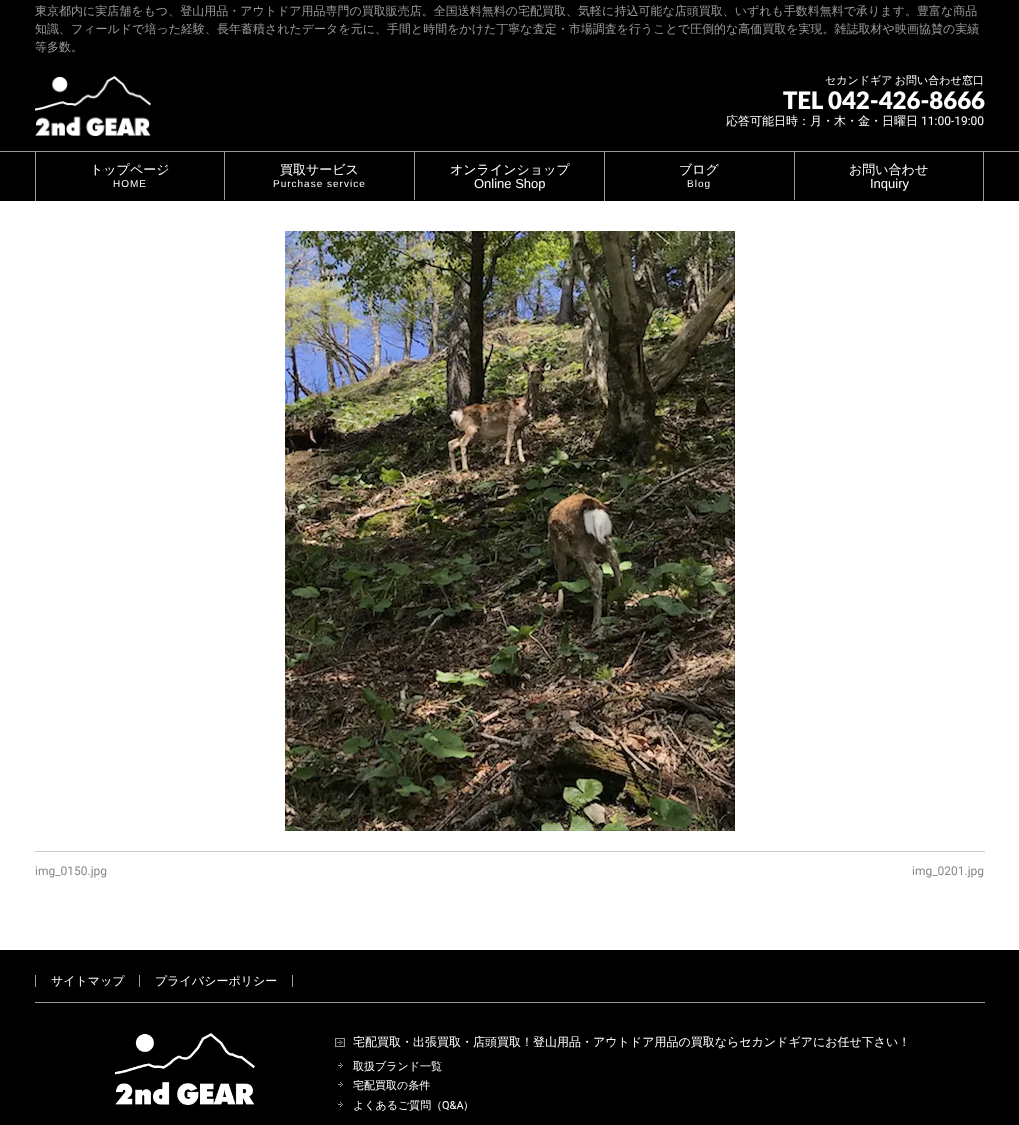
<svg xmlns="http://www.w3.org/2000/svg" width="1019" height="1125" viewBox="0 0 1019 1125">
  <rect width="100%" height="100%" fill="rgb(255,255,255)"/>
  <rect x="0" y="0" width="1019" height="151" fill="rgb(0,0,0)"/>
  <g font-family="WenQuanYi Zen Hei" font-size="12" font-weight="500" fill="rgb(153,153,153)">
    <text>
      <tspan x="35" y="15">東京都内に実店舗をもつ、登山用品・アウトドア用品専門の買取販売店。全国送料無料の宅配買取、気軽に持込可能な店頭買取、いずれも手数料無料で承ります。豊富な商品</tspan>
      <tspan x="35" y="33">知識、フィールドで培った経験、長年蓄積されたデータを元に、手間と時間をかけた丁寧な査定・市場調査を行うことで圧倒的な高価買取を実現。雑誌取材や映画協賛の実績</tspan>
      <tspan x="35" y="51">等多数。</tspan>
    </text>
  </g>
  <image x="35" y="76" width="116" height="60" href="pic1.png"/>
  <text x="825" y="84" word-spacing="-1" font-family="WenQuanYi Zen Hei" font-size="11" font-weight="500" fill="rgb(255,255,255)">セカンドギア お問い合わせ窓口</text>
  <text x="783" y="109" font-family="Lato" font-size="24" font-weight="900" fill="rgb(255,255,255)">TEL 042-426-8666</text>
  <text x="726" y="125" font-family="WenQuanYi Zen Hei" font-size="12" font-weight="500" fill="rgb(255,255,255)">応答可能日時：月・木・金・日曜日</text>
  <text x="921" y="125" font-family="Roboto" font-size="12" fill="rgb(255,255,255)">11:00-19:00</text>
  <rect x="0" y="152" width="1019" height="49" fill="rgb(0,0,0)"/>
  <rect x="0" y="151" width="1019" height="1" fill="rgb(153,153,153)"/>
  <rect x="35" y="152" width="1" height="49" fill="rgb(153,153,153)"/>
  <rect x="224" y="152" width="1" height="48" fill="rgb(153,153,153)"/>
  <text x="90" y="174" font-family="WenQuanYi Zen Hei" font-size="13" font-weight="500" fill="rgb(255,255,255)">トップページ</text>
  <text x="113" y="187" font-family="Liberation Sans" font-size="10" letter-spacing="1" fill="rgb(255,255,255)">HOME</text>
  <rect x="414" y="152" width="1" height="48" fill="rgb(153,153,153)"/>
  <text x="280" y="174" font-family="WenQuanYi Zen Hei" font-size="13" font-weight="500" fill="rgb(255,255,255)">買取サービス</text>
  <text x="273" y="187" font-family="Liberation Sans" font-size="10" letter-spacing="1" fill="rgb(255,255,255)">Purchase service</text>
  <rect x="604" y="152" width="1" height="49" fill="rgb(153,153,153)"/>
  <text x="450" y="174" font-family="WenQuanYi Zen Hei" font-size="13" font-weight="500" fill="rgb(255,255,255)">オンラインショップ</text>
  <text x="474" y="188" font-family="Liberation Sans" font-size="13" fill="rgb(255,255,255)">Online Shop</text>
  <rect x="794" y="152" width="1" height="48" fill="rgb(153,153,153)"/>
  <text x="679" y="174" font-family="WenQuanYi Zen Hei" font-size="13" font-weight="500" fill="rgb(255,255,255)">ブログ</text>
  <text x="687" y="187" font-family="Liberation Sans" font-size="10" letter-spacing="1" fill="rgb(255,255,255)">Blog</text>
  <rect x="983" y="152" width="1" height="49" fill="rgb(153,153,153)"/>
  <text x="849" y="174" font-family="WenQuanYi Zen Hei" font-size="13" font-weight="500" fill="rgb(255,255,255)">お問い合わせ</text>
  <text x="870" y="188" font-family="Liberation Sans" font-size="13" fill="rgb(255,255,255)">Inquiry</text>
  <image x="285" y="231" width="450" height="600" href="pic2.png"/>
  <rect x="35" y="851" width="950" height="1" fill="rgb(204,204,204)"/>
  <g font-family="Roboto" font-size="12" fill="rgb(136,136,136)">
    <text x="35" y="875">img_0150.jpg</text>
    <text x="912" y="875">img_0201.jpg</text>
  </g>
  <rect x="0" y="950" width="1019" height="175" fill="rgb(0,0,0)"/>
  <rect x="35" y="1002" width="950" height="1" fill="rgb(153,153,153)"/>
  <rect x="35" y="975" width="1" height="12" fill="rgb(153,153,153)"/>
  <text x="51" y="985" font-family="WenQuanYi Zen Hei" font-size="12" font-weight="500" fill="rgb(255,255,255)">サイトマップ</text>
  <rect x="139" y="975" width="1" height="12" fill="rgb(153,153,153)"/>
  <text x="155" y="985" font-family="WenQuanYi Zen Hei" font-size="12" font-weight="500" fill="rgb(255,255,255)">プライバシーポリシー</text>
  <rect x="292" y="975" width="1" height="12" fill="rgb(153,153,153)"/>
  <image x="115" y="1033" width="140" height="72" href="pic3.png"/>
  <image x="335" y="1038" width="10" height="9" href="pic4.png"/>
  <text x="353" y="1046" font-family="WenQuanYi Zen Hei" font-size="12" font-weight="500" fill="rgb(255,255,255)">宅配買取・出張買取・店頭買取！登山用品・アウトドア用品の買取ならセカンドギアにお任せ下さい！</text>
  <image x="338" y="1063" width="5" height="5" href="pic5.png"/>
  <text x="353" y="1070" font-family="WenQuanYi Zen Hei" font-size="11" font-weight="500" fill="rgb(255,255,255)">取扱ブランド一覧</text>
  <image x="338" y="1082" width="5" height="5" href="pic5.png"/>
  <text x="353" y="1089" font-family="WenQuanYi Zen Hei" font-size="11" font-weight="500" fill="rgb(255,255,255)">宅配買取の条件</text>
  <image x="338" y="1102" width="5" height="5" href="pic5.png"/>
  <text x="353" y="1109" font-family="WenQuanYi Zen Hei" font-size="11" font-weight="500" fill="rgb(255,255,255)">よくあるご質問（</text>
  <text x="442" y="1109" font-family="Roboto" font-size="11" fill="rgb(255,255,255)">Q&amp;A</text>
  <text x="463" y="1109" font-family="WenQuanYi Zen Hei" font-size="11" font-weight="500" fill="rgb(255,255,255)">）</text>
</svg>
